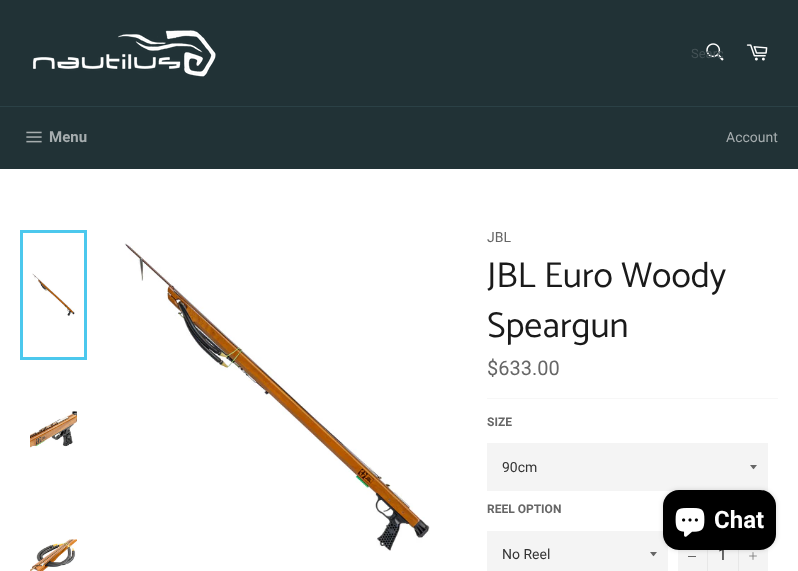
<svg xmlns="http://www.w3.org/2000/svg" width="798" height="571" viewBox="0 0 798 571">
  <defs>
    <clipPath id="clip1"><rect x="691" y="46" width="32" height="15"/></clipPath>
  </defs>
  <rect width="100%" height="100%" fill="rgb(33,50,54)"/>
  <image x="32" y="30" width="184" height="47" href="pic1.png"/>
  <image x="706" y="43" width="18" height="18" href="pic2.png"/>
  <g clip-path="url(#clip1)">
    <text x="691" y="58" font-family="Roboto" font-size="13" fill="rgb(67,81,85)">Searc</text>
  </g>
  <image x="746" y="44" width="22" height="17" href="pic3.png"/>
  <rect x="0" y="106" width="798" height="1" fill="rgb(43,65,70)"/>
  <image x="26" y="131" width="16" height="12" href="pic4.png"/>
  <text x="49" y="142" font-family="Roboto" font-size="15" font-weight="bold" fill="rgb(166,173,175)">Menu</text>
  <text x="726" y="142" font-family="Roboto" font-size="14" fill="rgb(166,173,175)">Account</text>
  <rect x="0" y="169" width="798" height="402" fill="rgb(255,255,255)"/>
  <image x="32" y="273" width="43" height="43" href="pic5.png"/>
  <rect x="21.5" y="231.5" width="64" height="127" fill="none" stroke="rgb(76,200,237)" stroke-width="3"/>
  <image x="30" y="411" width="47" height="37" href="pic6.png"/>
  <image x="30" y="539" width="47" height="32" href="pic7.png"/>
  <image x="124" y="243" width="306" height="308" href="pic8.png"/>
  <text x="487" y="242" font-family="Roboto" font-size="14" fill="rgb(102,102,102)">JBL</text>
  <g font-family="Catamaran" font-size="36" fill="rgb(26,26,26)">
    <text>
      <tspan x="487" y="287">JBL Euro Woody</tspan>
      <tspan x="487" y="337">Speargun</tspan>
    </text>
  </g>
  <text x="487" y="375" font-family="Roboto" font-size="20" fill="rgb(102,102,102)">$633.00</text>
  <rect x="487" y="398" width="291" height="1" fill="rgb(247,247,247)"/>
  <text x="487" y="426" font-family="Roboto" font-size="12" font-weight="bold" fill="rgb(102,102,102)">SIZE</text>
  <rect x="487" y="443" width="281" height="48" fill="rgb(244,244,244)"/>
  <path d="M750 465C754.5 470.5 752.5 470.5 757 465Z" fill="rgb(102,102,102)"/>
  <text x="502" y="472" font-family="Roboto" font-size="14" fill="rgb(51,51,51)">90cm</text>
  <text x="487" y="513" font-family="Roboto" font-size="12" font-weight="bold" fill="rgb(102,102,102)">REEL OPTION</text>
  <rect x="487" y="531" width="181" height="40" fill="rgb(244,244,244)"/>
  <path d="M650 552C654.5 557.5 652.5 557.5 657 552Z" fill="rgb(102,102,102)"/>
  <text x="502" y="559" font-family="Roboto" font-size="14" fill="rgb(51,51,51)">No Reel</text>
  <rect x="678" y="547" width="90" height="24" fill="rgb(244,244,244)"/>
  <rect x="707" y="550" width="1" height="21" fill="rgb(231,231,231)"/>
  <rect x="688" y="556" width="8" height="1" fill="rgb(102,102,102)"/>
  <text x="718" y="560" font-family="Roboto" font-size="16" fill="rgb(51,51,51)">1</text>
  <rect x="738" y="550" width="1" height="21" fill="rgb(231,231,231)"/>
  <image x="749" y="552" width="8" height="8" href="pic9.png"/>
  <rect x="663" y="490" width="113" height="60" rx="16" fill="rgba(0,0,0,0.15)" filter="blur(2.5px)"/>
  <rect x="663" y="490" width="113" height="60" rx="16" fill="rgb(0,0,0)"/>
  <image x="675" y="508" width="30" height="29" href="pic10.png"/>
  <text x="714" y="528" font-family="Roboto" font-size="24" font-weight="bold" fill="rgb(255,255,255)">Chat</text>
</svg>
